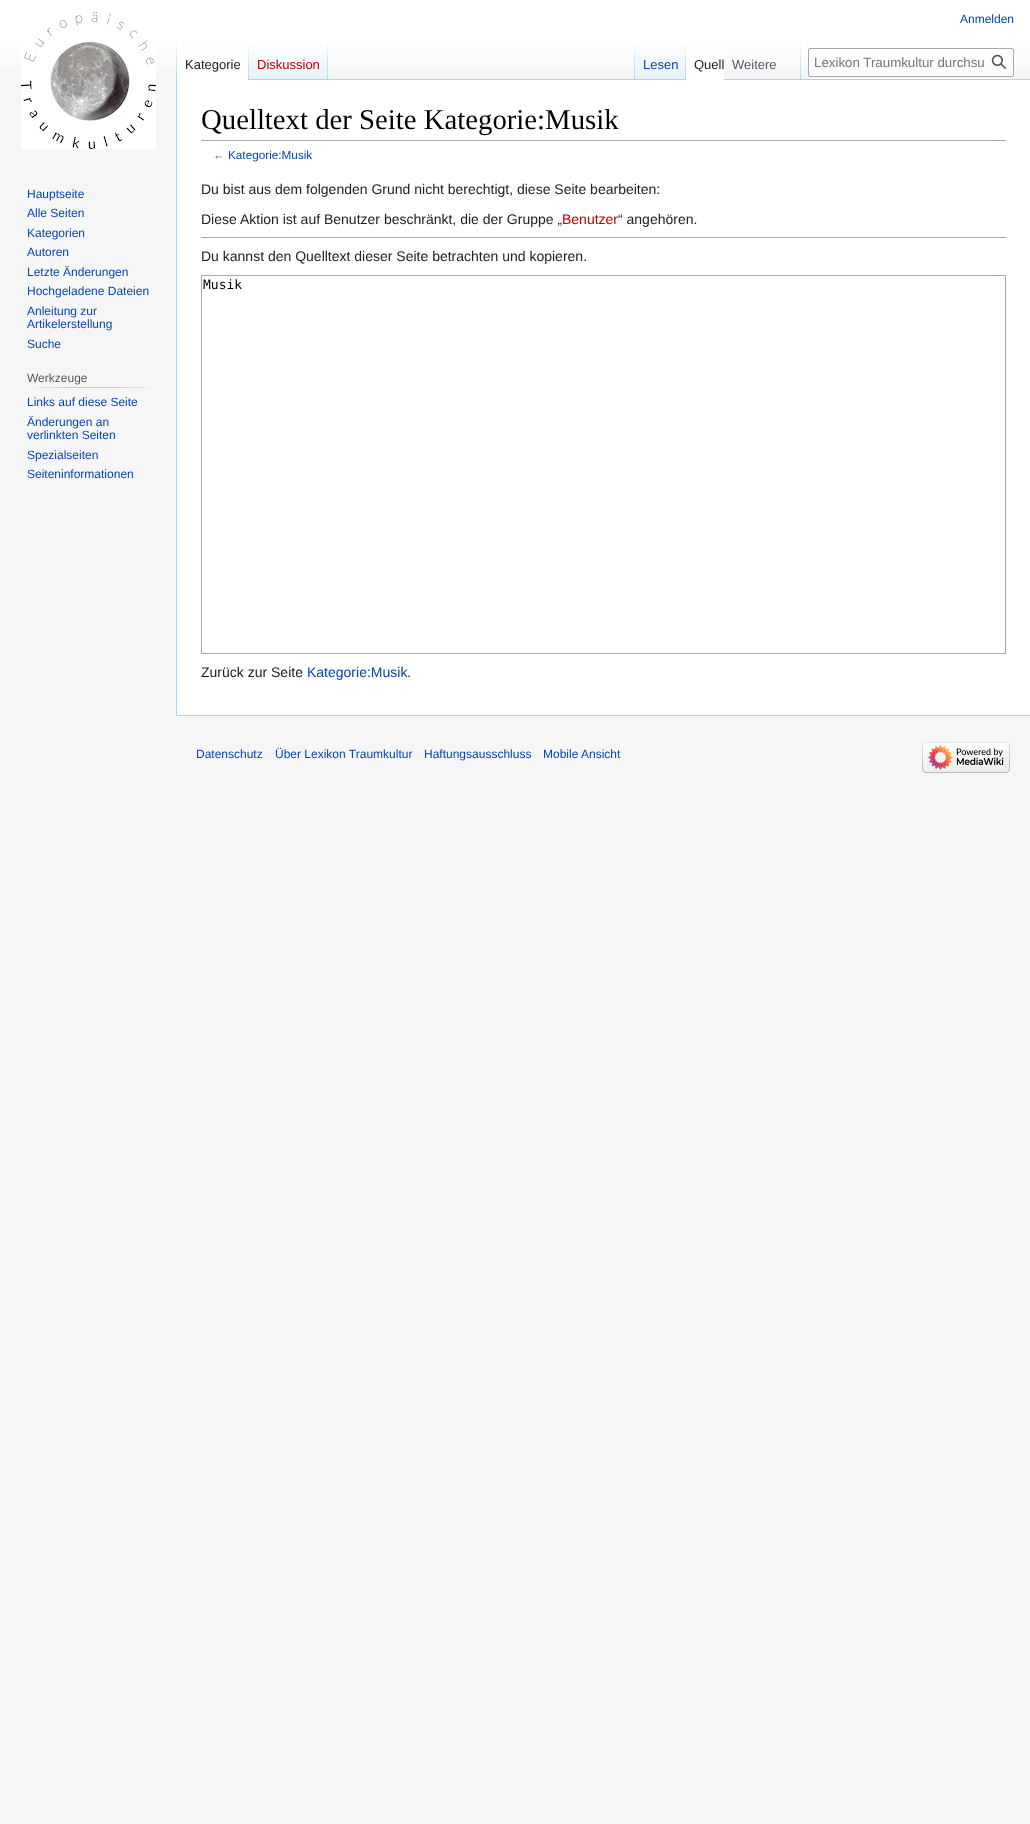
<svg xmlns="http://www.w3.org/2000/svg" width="1030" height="1824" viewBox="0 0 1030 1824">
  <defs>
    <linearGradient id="g1" gradientUnits="userSpaceOnUse" x1="515" y1="0" x2="515" y2="80"><stop offset="0.5" stop-color="rgb(255,255,255)"/><stop offset="1" stop-color="rgb(246,246,246)"/></linearGradient>
    <linearGradient id="g2" gradientUnits="userSpaceOnUse" x1="177" y1="40" x2="177" y2="80"><stop offset="0" stop-color="rgb(167,215,249)" stop-opacity="0"/><stop offset="1" stop-color="rgb(167,215,249)"/></linearGradient>
    <linearGradient id="g3" gradientUnits="userSpaceOnUse" x1="249" y1="40" x2="249" y2="80"><stop offset="0" stop-color="rgb(255,255,255)"/><stop offset="1" stop-color="rgb(167,215,249)"/></linearGradient>
    <linearGradient id="g4" gradientUnits="userSpaceOnUse" x1="289" y1="80" x2="289" y2="40"><stop offset="0" stop-color="rgb(119,193,246)"/><stop offset="0.03" stop-color="rgb(232,242,248)"/><stop offset="1" stop-color="rgb(255,255,255)"/></linearGradient>
    <linearGradient id="g5" gradientUnits="userSpaceOnUse" x1="328" y1="40" x2="328" y2="80"><stop offset="0" stop-color="rgb(167,215,249)" stop-opacity="0"/><stop offset="1" stop-color="rgb(167,215,249)"/></linearGradient>
    <linearGradient id="g6" gradientUnits="userSpaceOnUse" x1="635" y1="40" x2="635" y2="80"><stop offset="0" stop-color="rgb(167,215,249)" stop-opacity="0"/><stop offset="1" stop-color="rgb(167,215,249)"/></linearGradient>
    <linearGradient id="g7" gradientUnits="userSpaceOnUse" x1="661" y1="80" x2="661" y2="40"><stop offset="0" stop-color="rgb(119,193,246)"/><stop offset="0.03" stop-color="rgb(232,242,248)"/><stop offset="1" stop-color="rgb(255,255,255)"/></linearGradient>
    <linearGradient id="g8" gradientUnits="userSpaceOnUse" x1="686" y1="40" x2="686" y2="80"><stop offset="0" stop-color="rgb(167,215,249)" stop-opacity="0"/><stop offset="1" stop-color="rgb(167,215,249)"/></linearGradient>
    <linearGradient id="g9" gradientUnits="userSpaceOnUse" x1="801" y1="40" x2="801" y2="80"><stop offset="0" stop-color="rgb(167,215,249)" stop-opacity="0"/><stop offset="1" stop-color="rgb(167,215,249)"/></linearGradient>
    <clipPath id="clip1"><rect x="814" y="55" width="170" height="15"/></clipPath>
    <linearGradient id="g10" gradientUnits="userSpaceOnUse" x1="27" y1="388" x2="158" y2="388"><stop offset="0" stop-color="rgb(246,246,246)"/><stop offset="0.33" stop-color="rgb(200,204,209)"/><stop offset="0.66" stop-color="rgb(200,204,209)"/><stop offset="1" stop-color="rgb(246,246,246)"/></linearGradient>
  </defs>
  <rect width="100%" height="100%" fill="rgb(246,246,246)"/>
  <rect x="0" y="0" width="1030" height="69" fill="url(#g1)"/>
  <text x="960" y="23" font-family="Liberation Sans" font-size="12" fill="rgb(6,69,173)">Anmelden</text>
  <rect x="176" y="715" width="854" height="1" fill="rgb(167,215,249)"/>
  <rect x="176" y="79" width="1" height="637" fill="rgb(167,215,249)"/>
  <rect x="176" y="40" width="1" height="40" fill="url(#g2)"/>
  <rect x="177" y="51" width="71" height="29" fill="rgb(255,255,255)"/>
  <rect x="248" y="40" width="1" height="40" fill="url(#g3)"/>
  <text x="185" y="69" font-family="Liberation Sans" font-size="13" fill="rgb(32,33,34)">Kategorie</text>
  <rect x="249" y="46" width="79" height="34" fill="url(#g4)"/>
  <rect x="327" y="40" width="1" height="40" fill="url(#g5)"/>
  <text x="257" y="69" font-family="Liberation Sans" font-size="13" fill="rgb(186,0,0)">Diskussion</text>
  <rect x="328" y="79" width="702" height="1" fill="rgb(167,215,249)"/>
  <rect x="634" y="40" width="1" height="40" fill="url(#g6)"/>
  <rect x="635" y="46" width="51" height="33" fill="url(#g7)"/>
  <rect x="685" y="40" width="1" height="40" fill="url(#g8)"/>
  <text x="643" y="69" font-family="Liberation Sans" font-size="13" fill="rgb(6,69,173)">Lesen</text>
  <rect x="686" y="51" width="38" height="29" fill="rgb(255,255,255)"/>
  <text x="694" y="69" font-family="Liberation Sans" font-size="13" fill="rgb(32,33,34)">Quell</text>
  <rect x="800" y="40" width="1" height="40" fill="url(#g9)"/>
  <text x="732" y="69" font-family="Liberation Sans" font-size="13" fill="rgb(84,89,93)">Weitere</text>
  <rect x="808.5" y="48.5" width="205" height="28" rx="1.5" fill="rgba(255,255,255,0.5)" stroke="rgb(162,169,177)"/>
  <g clip-path="url(#clip1)">
    <text x="814" y="67" font-family="Liberation Sans" font-size="13.3" fill="rgb(114,119,125)">Lexikon Traumkultur durchsu</text>
  </g>
  <image x="991" y="54" width="15" height="15" href="pic1.png"/>
  <image x="21" y="12" width="135" height="137" href="pic2.png"/>
  <g font-family="Liberation Sans" font-size="12" fill="rgb(6,69,173)">
    <text>
      <tspan x="27" y="198">Hauptseite</tspan>
      <tspan x="27" y="217">Alle Seiten</tspan>
      <tspan x="27" y="237">Kategorien</tspan>
      <tspan x="27" y="256">Autoren</tspan>
      <tspan x="27" y="276">Letzte Änderungen</tspan>
      <tspan x="27" y="295">Hochgeladene Dateien</tspan>
      <tspan x="27" y="315">Anleitung zur</tspan>
      <tspan x="27" y="328">Artikelerstellung</tspan>
      <tspan x="27" y="348">Suche</tspan>
    </text>
  </g>
  <rect x="27" y="387" width="131" height="1" fill="url(#g10)"/>
  <text x="27" y="382" font-family="Liberation Sans" font-size="12" fill="rgb(84,89,93)">Werkzeuge</text>
  <g font-family="Liberation Sans" font-size="12" fill="rgb(6,69,173)">
    <text>
      <tspan x="27" y="406">Links auf diese Seite</tspan>
      <tspan x="27" y="426">Änderungen an</tspan>
      <tspan x="27" y="439">verlinkten Seiten</tspan>
      <tspan x="27" y="459">Spezialseiten</tspan>
      <tspan x="27" y="478">Seiteninformationen</tspan>
    </text>
  </g>
  <rect x="177" y="80" width="853" height="635" fill="rgb(255,255,255)"/>
  <rect x="201" y="140" width="805" height="1" fill="rgb(162,169,177)"/>
  <text x="201" y="129" font-family="Liberation Serif" font-size="28.75" fill="rgb(0,0,0)">Quelltext der Seite Kategorie:Musik</text>
  <text x="213" y="159" font-family="Liberation Sans" font-size="11.75" fill="rgb(84,89,93)">←</text>
  <text x="228" y="159" font-family="Liberation Sans" font-size="11.75" fill="rgb(6,69,173)">Kategorie:Musik</text>
  <g font-family="Liberation Sans" font-size="14" fill="rgb(32,33,34)">
    <text x="201" y="194">Du bist aus dem folgenden Grund nicht berechtigt, diese Seite bearbeiten:</text>
    <text x="201" y="224">Diese Aktion ist auf Benutzer beschränkt, die der Gruppe „</text>
  </g>
  <text x="562" y="224" font-family="Liberation Sans" font-size="14" fill="rgb(186,0,0)">Benutzer</text>
  <text x="618" y="224" font-family="Liberation Sans" font-size="14" fill="rgb(32,33,34)">“ angehören.</text>
  <rect x="201" y="237" width="805" height="1" fill="rgb(162,169,177)"/>
  <text x="201" y="261" font-family="Liberation Sans" font-size="14" fill="rgb(32,33,34)">Du kannst den Quelltext dieser Seite betrachten und kopieren.</text>
  <rect x="201.5" y="275.5" width="804" height="378" fill="none" stroke="rgb(162,169,177)"/>
  <text x="203" y="289" font-family="DejaVu Sans Mono" font-size="13" fill="rgb(0,0,0)">Musik</text>
  <text x="201" y="677" font-family="Liberation Sans" font-size="14" fill="rgb(32,33,34)">Zurück zur Seite</text>
  <text x="307" y="677" font-family="Liberation Sans" font-size="14" fill="rgb(6,69,173)">Kategorie:Musik</text>
  <text x="407" y="677" font-family="Liberation Sans" font-size="14" fill="rgb(32,33,34)">.</text>
  <g font-family="Liberation Sans" font-size="12" fill="rgb(6,69,173)">
    <text x="196" y="758">Datenschutz</text>
    <text x="275" y="758">Über Lexikon Traumkultur</text>
    <text x="424" y="758">Haftungsausschluss</text>
    <text x="543" y="758">Mobile Ansicht</text>
  </g>
  <image x="922" y="742" width="88" height="31" href="pic3.png"/>
</svg>
